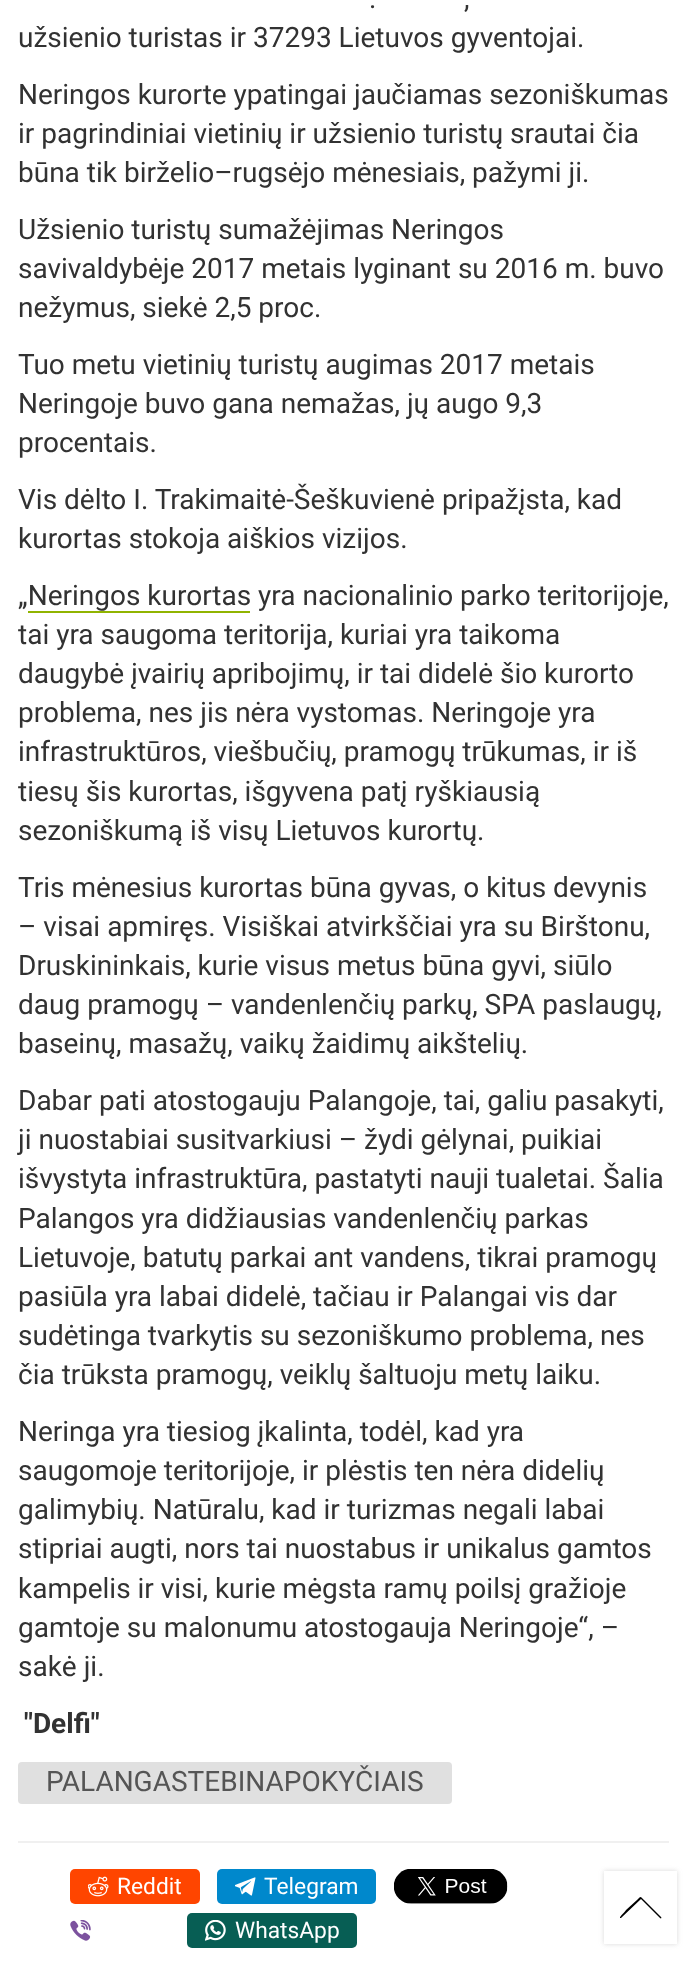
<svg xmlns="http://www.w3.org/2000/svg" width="686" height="1961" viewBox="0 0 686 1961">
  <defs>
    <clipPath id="clip1"><path d="M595 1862H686V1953H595ZM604 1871H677V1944H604Z" clip-rule="evenodd"/></clipPath>
  </defs>
  <rect width="100%" height="100%" fill="rgb(255,255,255)"/>
  <g font-family="Roboto" font-size="28" fill="rgb(50,50,50)">
    <text x="369" y="8">.</text>
    <text x="464" y="8">,</text>
    <text x="18" y="47">užsienio turistas ir 37293 Lietuvos gyventojai.</text>
    <text>
      <tspan x="18" y="104">Neringos kurorte ypatingai jaučiamas sezoniškumas</tspan>
      <tspan x="18" y="143">ir pagrindiniai vietinių ir užsienio turistų srautai čia</tspan>
      <tspan x="18" y="182">būna tik birželio–rugsėjo mėnesiais, pažymi ji.</tspan>
    </text>
    <text>
      <tspan x="18" y="239">Užsienio turistų sumažėjimas Neringos</tspan>
      <tspan x="18" y="278">savivaldybėje 2017 metais lyginant su 2016 m. buvo</tspan>
      <tspan x="18" y="317">nežymus, siekė 2,5 proc.</tspan>
    </text>
    <text>
      <tspan x="18" y="374">Tuo metu vietinių turistų augimas 2017 metais</tspan>
      <tspan x="18" y="413">Neringoje buvo gana nemažas, jų augo 9,3</tspan>
      <tspan x="18" y="452">procentais.</tspan>
    </text>
    <text>
      <tspan x="18" y="509">Vis dėlto I. Trakimaitė-Šeškuvienė pripažįsta, kad</tspan>
      <tspan x="18" y="548">kurortas stokoja aiškios vizijos.</tspan>
    </text>
    <text x="18" y="605">„Neringos kurortas yra nacionalinio parko teritorijoje,</text>
  </g>
  <rect x="28" y="611" width="222" height="2" fill="rgb(144,180,0)"/>
  <g font-family="Roboto" font-size="28" fill="rgb(50,50,50)">
    <text>
      <tspan x="18" y="644">tai yra saugoma teritorija, kuriai yra taikoma</tspan>
      <tspan x="18" y="683">daugybė įvairių apribojimų, ir tai didelė šio kurorto</tspan>
      <tspan x="18" y="722">problema, nes jis nėra vystomas. Neringoje yra</tspan>
      <tspan x="18" y="761">infrastruktūros, viešbučių, pramogų trūkumas, ir iš</tspan>
      <tspan x="18" y="801">tiesų šis kurortas, išgyvena patį ryškiausią</tspan>
      <tspan x="18" y="840">sezoniškumą iš visų Lietuvos kurortų.</tspan>
    </text>
    <text>
      <tspan x="18" y="897">Tris mėnesius kurortas būna gyvas, o kitus devynis</tspan>
      <tspan x="18" y="936">– visai apmiręs. Visiškai atvirkščiai yra su Birštonu,</tspan>
      <tspan x="18" y="975">Druskininkais, kurie visus metus būna gyvi, siūlo</tspan>
      <tspan x="18" y="1014">daug pramogų – vandenlenčių parkų, SPA paslaugų,</tspan>
      <tspan x="18" y="1053">baseinų, masažų, vaikų žaidimų aikštelių.</tspan>
    </text>
    <text>
      <tspan x="18" y="1110">Dabar pati atostogauju Palangoje, tai, galiu pasakyti,</tspan>
      <tspan x="18" y="1149">ji nuostabiai susitvarkiusi – žydi gėlynai, puikiai</tspan>
      <tspan x="18" y="1188">išvystyta infrastruktūra, pastatyti nauji tualetai. Šalia</tspan>
      <tspan x="18" y="1228">Palangos yra didžiausias vandenlenčių parkas</tspan>
      <tspan x="18" y="1267">Lietuvoje, batutų parkai ant vandens, tikrai pramogų</tspan>
      <tspan x="18" y="1306">pasiūla yra labai didelė, tačiau ir Palangai vis dar</tspan>
      <tspan x="18" y="1345">sudėtinga tvarkytis su sezoniškumo problema, nes</tspan>
      <tspan x="18" y="1384">čia trūksta pramogų, veiklų šaltuoju metų laiku.</tspan>
    </text>
    <text>
      <tspan x="18" y="1441">Neringa yra tiesiog įkalinta, todėl, kad yra</tspan>
      <tspan x="18" y="1480">saugomoje teritorijoje, ir plėstis ten nėra didelių</tspan>
      <tspan x="18" y="1519">galimybių. Natūralu, kad ir turizmas negali labai</tspan>
      <tspan x="18" y="1558">stipriai augti, nors tai nuostabus ir unikalus gamtos</tspan>
      <tspan x="18" y="1598">kampelis ir visi, kurie mėgsta ramų poilsį gražioje</tspan>
      <tspan x="18" y="1637">gamtoje su malonumu atostogauja Neringoje“, –</tspan>
      <tspan x="18" y="1676">sakė ji.</tspan>
    </text>
  </g>
  <text x="24" y="1733" font-family="Roboto" font-size="28" font-weight="bold" fill="rgb(50,50,50)">"Delfi"</text>
  <rect x="18" y="1762" width="434" height="42" rx="4" fill="rgb(224,224,224)"/>
  <text x="46" y="1791" font-family="Roboto" font-size="28" fill="rgb(85,85,85)">PALANGASTEBINAPOKYČIAIS</text>
  <rect x="18" y="1841" width="651" height="2" fill="rgb(240,240,240)"/>
  <rect x="70" y="1869" width="130" height="35" rx="5" fill="rgb(255,69,0)"/>
  <image x="88" y="1876" width="21" height="21" href="pic1.png"/>
  <text x="117" y="1894" font-family="Roboto" font-size="22.75" fill="rgb(255,255,255)">Reddit</text>
  <rect x="217" y="1869" width="159" height="35" rx="5" fill="rgb(0,136,204)"/>
  <image x="235" y="1877" width="21" height="19" href="pic2.png"/>
  <text x="264" y="1894" font-family="Roboto" font-size="22.75" fill="rgb(255,255,255)">Telegram</text>
  <image x="394" y="1869" width="114" height="35" href="pic3.png"/>
  <image x="70" y="1920" width="21" height="21" href="pic4.png"/>
  <rect x="187" y="1913" width="170" height="35" rx="5" fill="rgb(7,94,84)"/>
  <image x="205" y="1920" width="21" height="21" href="pic5.png"/>
  <text x="235" y="1938" font-family="Roboto" font-size="22.75" fill="rgb(255,255,255)">WhatsApp</text>
  <g clip-path="url(#clip1)">
    <rect x="604" y="1871" width="73" height="73" fill="rgba(99,99,99,0.25)" filter="blur(2.5px)"/>
  </g>
  <path d="M661 1917L644 1900C640 1896 641 1896 637 1900L626 1910C626 1911 619 1917 620 1918H621L641 1899L660 1918C661 1919 662 1918 661 1917Z" fill="rgb(0,0,0)"/>
</svg>
